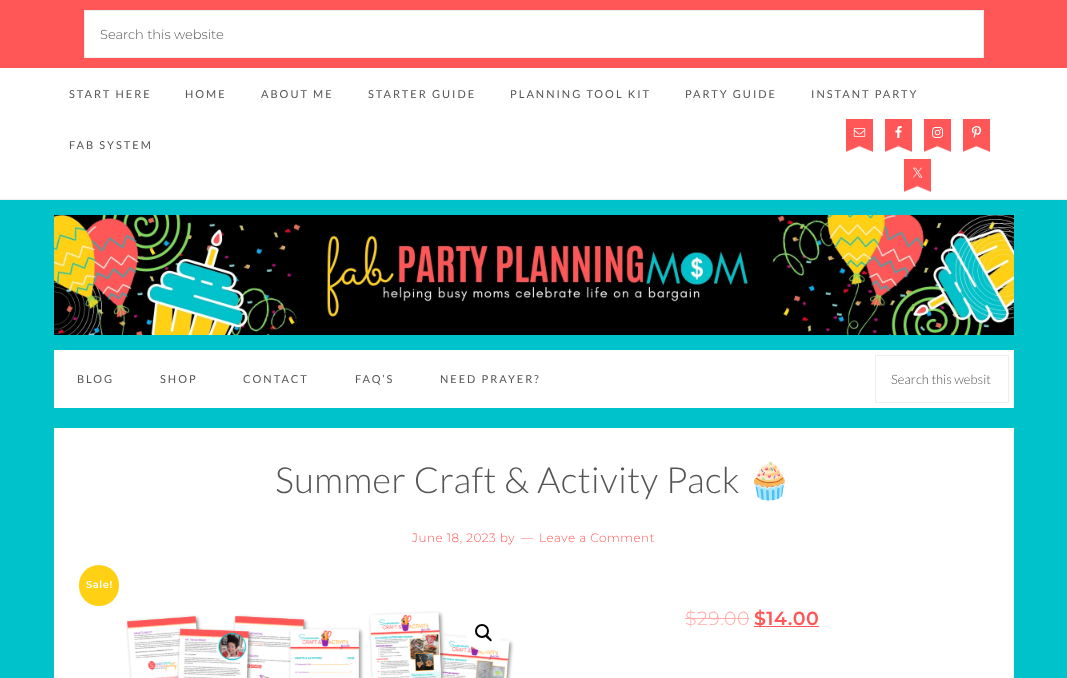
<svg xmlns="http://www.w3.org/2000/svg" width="1067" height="678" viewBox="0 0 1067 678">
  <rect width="100%" height="100%" fill="rgb(0,194,203)"/>
  <rect x="0" y="0" width="1067" height="68" fill="rgb(255,87,87)"/>
  <rect x="84.5" y="10.5" width="899" height="47" fill="rgb(255,255,255)" stroke="rgb(238,238,238)"/>
  <text x="100" y="39" font-family="Montserrat" font-size="13" font-weight="300" fill="rgb(85,85,85)">Search this website</text>
  <rect x="0" y="68" width="1067" height="131" fill="rgb(255,255,255)"/>
  <rect x="0" y="199" width="1067" height="1" fill="rgb(238,238,238)"/>
  <g font-family="Lato" font-size="11" letter-spacing="2" fill="rgb(85,85,85)">
    <text x="69" y="98">START HERE</text>
    <text x="185" y="98">HOME</text>
    <text x="261" y="98">ABOUT ME</text>
    <text x="368" y="98">STARTER GUIDE</text>
    <text x="510" y="98">PLANNING TOOL KIT</text>
    <text x="685" y="98">PARTY GUIDE</text>
    <text x="811" y="98">INSTANT PARTY</text>
    <text x="69" y="149">FAB SYSTEM</text>
  </g>
  <rect x="846" y="119" width="27" height="34" fill="rgb(255,87,87)"/>
  <image x="846" y="145" width="27" height="14" href="pic1.png"/>
  <image x="853" y="128" width="13" height="9" href="pic2.png"/>
  <rect x="885" y="119" width="27" height="34" fill="rgb(255,87,87)"/>
  <image x="885" y="145" width="27" height="14" href="pic1.png"/>
  <image x="895" y="126" width="7" height="12" href="pic3.png"/>
  <rect x="924" y="119" width="27" height="34" fill="rgb(255,87,87)"/>
  <image x="924" y="145" width="27" height="14" href="pic1.png"/>
  <image x="932" y="127" width="11" height="11" href="pic4.png"/>
  <rect x="963" y="119" width="27" height="34" fill="rgb(255,87,87)"/>
  <image x="963" y="145" width="27" height="14" href="pic1.png"/>
  <image x="971" y="126" width="11" height="12" href="pic5.png"/>
  <rect x="904" y="159" width="27" height="34" fill="rgb(255,87,87)"/>
  <image x="904" y="185" width="27" height="14" href="pic1.png"/>
  <image x="913" y="167" width="10" height="11" href="pic6.png"/>
  <image x="54" y="215" width="960" height="120" href="pic7.png"/>
  <rect x="54" y="350" width="960" height="58" fill="rgb(255,255,255)"/>
  <g font-family="Lato" font-size="11" letter-spacing="2" fill="rgb(85,85,85)">
    <text x="77" y="383">BLOG</text>
    <text x="160" y="383">SHOP</text>
    <text x="243" y="383">CONTACT</text>
    <text x="355" y="383">FAQ’S</text>
    <text x="440" y="383">NEED PRAYER?</text>
  </g>
  <rect x="875.5" y="355.5" width="133" height="47" fill="none" stroke="rgb(238,238,238)"/>
  <text x="891" y="384" font-family="Lato" font-size="13" font-weight="300" fill="rgb(85,85,85)">Search this websit</text>
  <rect x="54" y="428" width="960" height="250" fill="rgb(255,255,255)"/>
  <text x="275" y="493" font-family="Lato" font-size="36" font-weight="300" letter-spacing="0.5" fill="rgb(85,85,85)">Summer Craft &amp; Activity Pack</text>
  <text x="747" y="493" font-family="Noto Color Emoji" font-size="36" letter-spacing="0.5" fill="rgb(85,85,85)">🧁</text>
  <g font-family="Montserrat" font-size="12" font-weight="300" letter-spacing="0.5" fill="rgb(255,87,87)">
    <text x="412" y="542">June 18, 2023 by</text>
    <text x="521" y="542">—</text>
    <text x="539" y="542">Leave a Comment</text>
  </g>
  <rect x="79" y="565" width="40" height="41" rx="20" fill="rgb(255,208,20)"/>
  <text x="86" y="588" font-family="Montserrat" font-size="10" font-weight="600" letter-spacing="0.5" fill="rgb(255,255,255)">Sale!</text>
  <image x="126" y="611" width="388" height="67" href="pic8.png"/>
  <circle cx="484" cy="633" r="18" fill="rgb(255,255,255)"/>
  <circle cx="482" cy="631" r="6" fill="none" stroke="rgb(0,0,0)" stroke-width="2"/>
  <path d="M486 635.5C487 634 489 637 489.5 637.5C490 638 492.5 640 491.5 641C490.5 642 488.5 639.5 488 639C487.5 638.5 484.5 636.5 486 635.5Z" fill="rgb(0,0,0)"/>
  <text x="685" y="625" font-family="Montserrat" font-size="19" font-weight="300" letter-spacing="0.5" fill="rgb(255,171,171)">$29.00</text>
  <rect x="685" y="618" width="64" height="1" fill="rgb(255,171,171)"/>
  <rect x="754" y="626" width="65" height="1" fill="rgb(255,87,87)"/>
  <text x="754" y="625" font-family="Montserrat" font-size="19" font-weight="600" letter-spacing="0.5" fill="rgb(255,87,87)">$14.00</text>
</svg>
